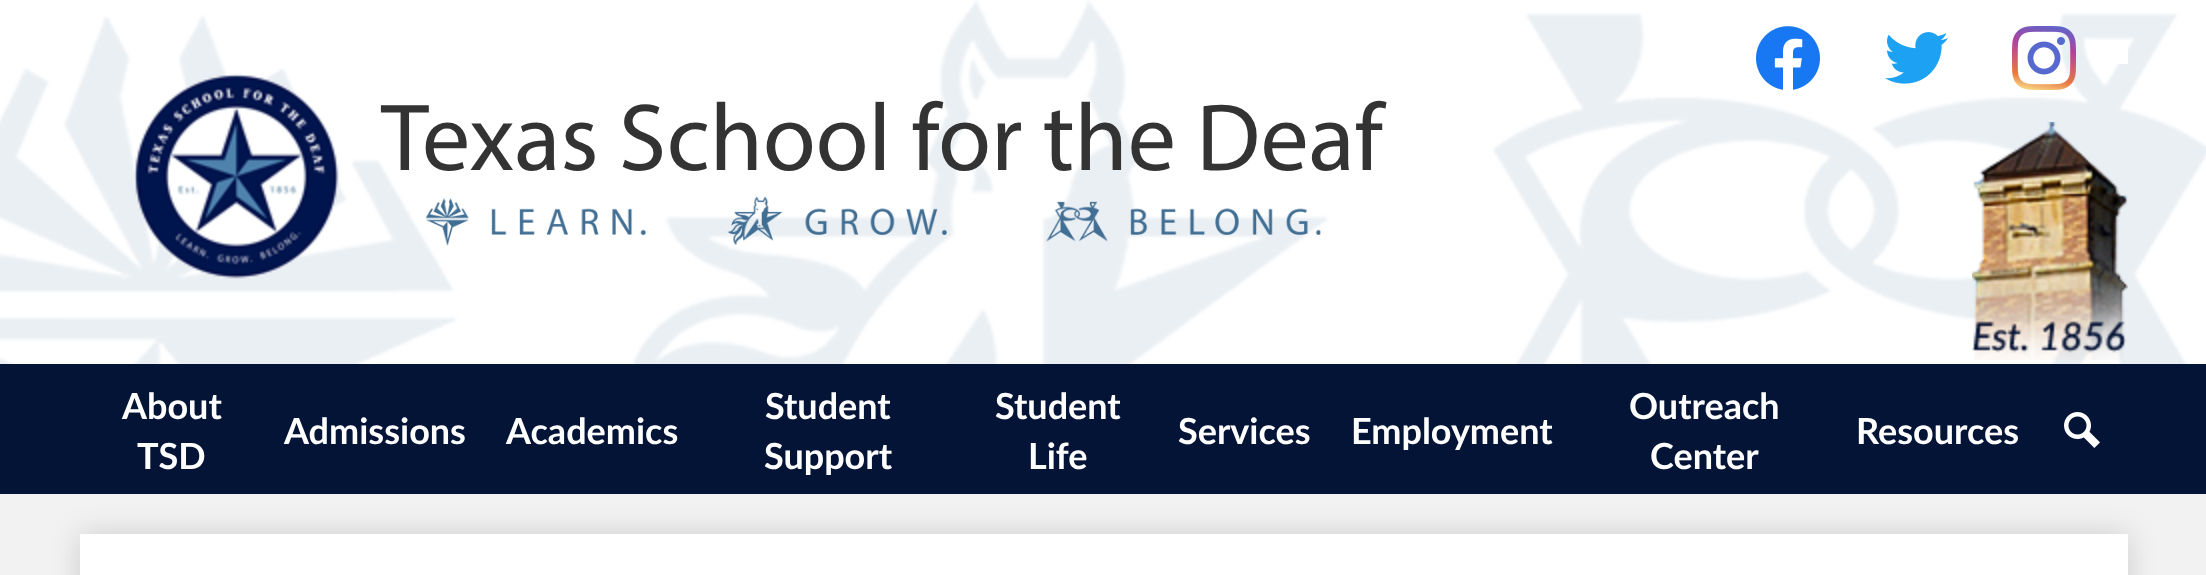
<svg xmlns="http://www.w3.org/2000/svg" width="2206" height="575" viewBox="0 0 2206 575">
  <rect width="100%" height="100%" fill="rgb(242,242,242)"/>
  <rect x="0" y="0" width="2206" height="364" fill="rgb(255,255,255)"/>
  <image x="0" y="0" width="2206" height="364" href="pic1.png"/>
  <image x="1756" y="26" width="64" height="64" href="pic2.png"/>
  <image x="1885" y="32" width="63" height="52" href="pic3.png"/>
  <image x="2012" y="26" width="64" height="64" href="pic4.png"/>
  <rect x="2117" y="46" width="11" height="18" fill="rgb(255,255,255)"/>
  <image x="134" y="73" width="205" height="206" href="pic5.png"/>
  <text x="381" y="170" font-family="Myriad" font-size="96" fill="rgb(51,51,51)">Texas School for the Deaf</text>
  <image x="425" y="196" width="896" height="50" href="pic6.png"/>
  <image x="1972" y="122" width="156" height="238" href="pic7.png"/>
  <rect x="80" y="534" width="2048" height="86" fill="rgba(0,0,0,0.15)" filter="blur(15px)"/>
  <rect x="0" y="364" width="2206" height="130" fill="rgb(4,20,54)"/>
  <g font-family="Lato" font-size="36" font-weight="bold" fill="rgb(255,255,255)">
    <text x="122" y="419">About</text>
    <text x="137" y="469">TSD</text>
    <text x="284" y="444">Admissions</text>
    <text x="506" y="444">Academics</text>
    <text x="765" y="419">Student</text>
    <text x="764" y="469">Support</text>
    <text x="995" y="419">Student</text>
    <text x="1028" y="469">Life</text>
    <text x="1178" y="444">Services</text>
    <text x="1351" y="444">Employment</text>
    <text x="1629" y="419">Outreach</text>
    <text x="1650" y="469">Center</text>
    <text x="1856" y="444">Resources</text>
  </g>
  <image x="2064" y="412" width="36" height="36" href="pic8.png"/>
  <rect x="80" y="534" width="2048" height="41" fill="rgb(255,255,255)"/>
</svg>
